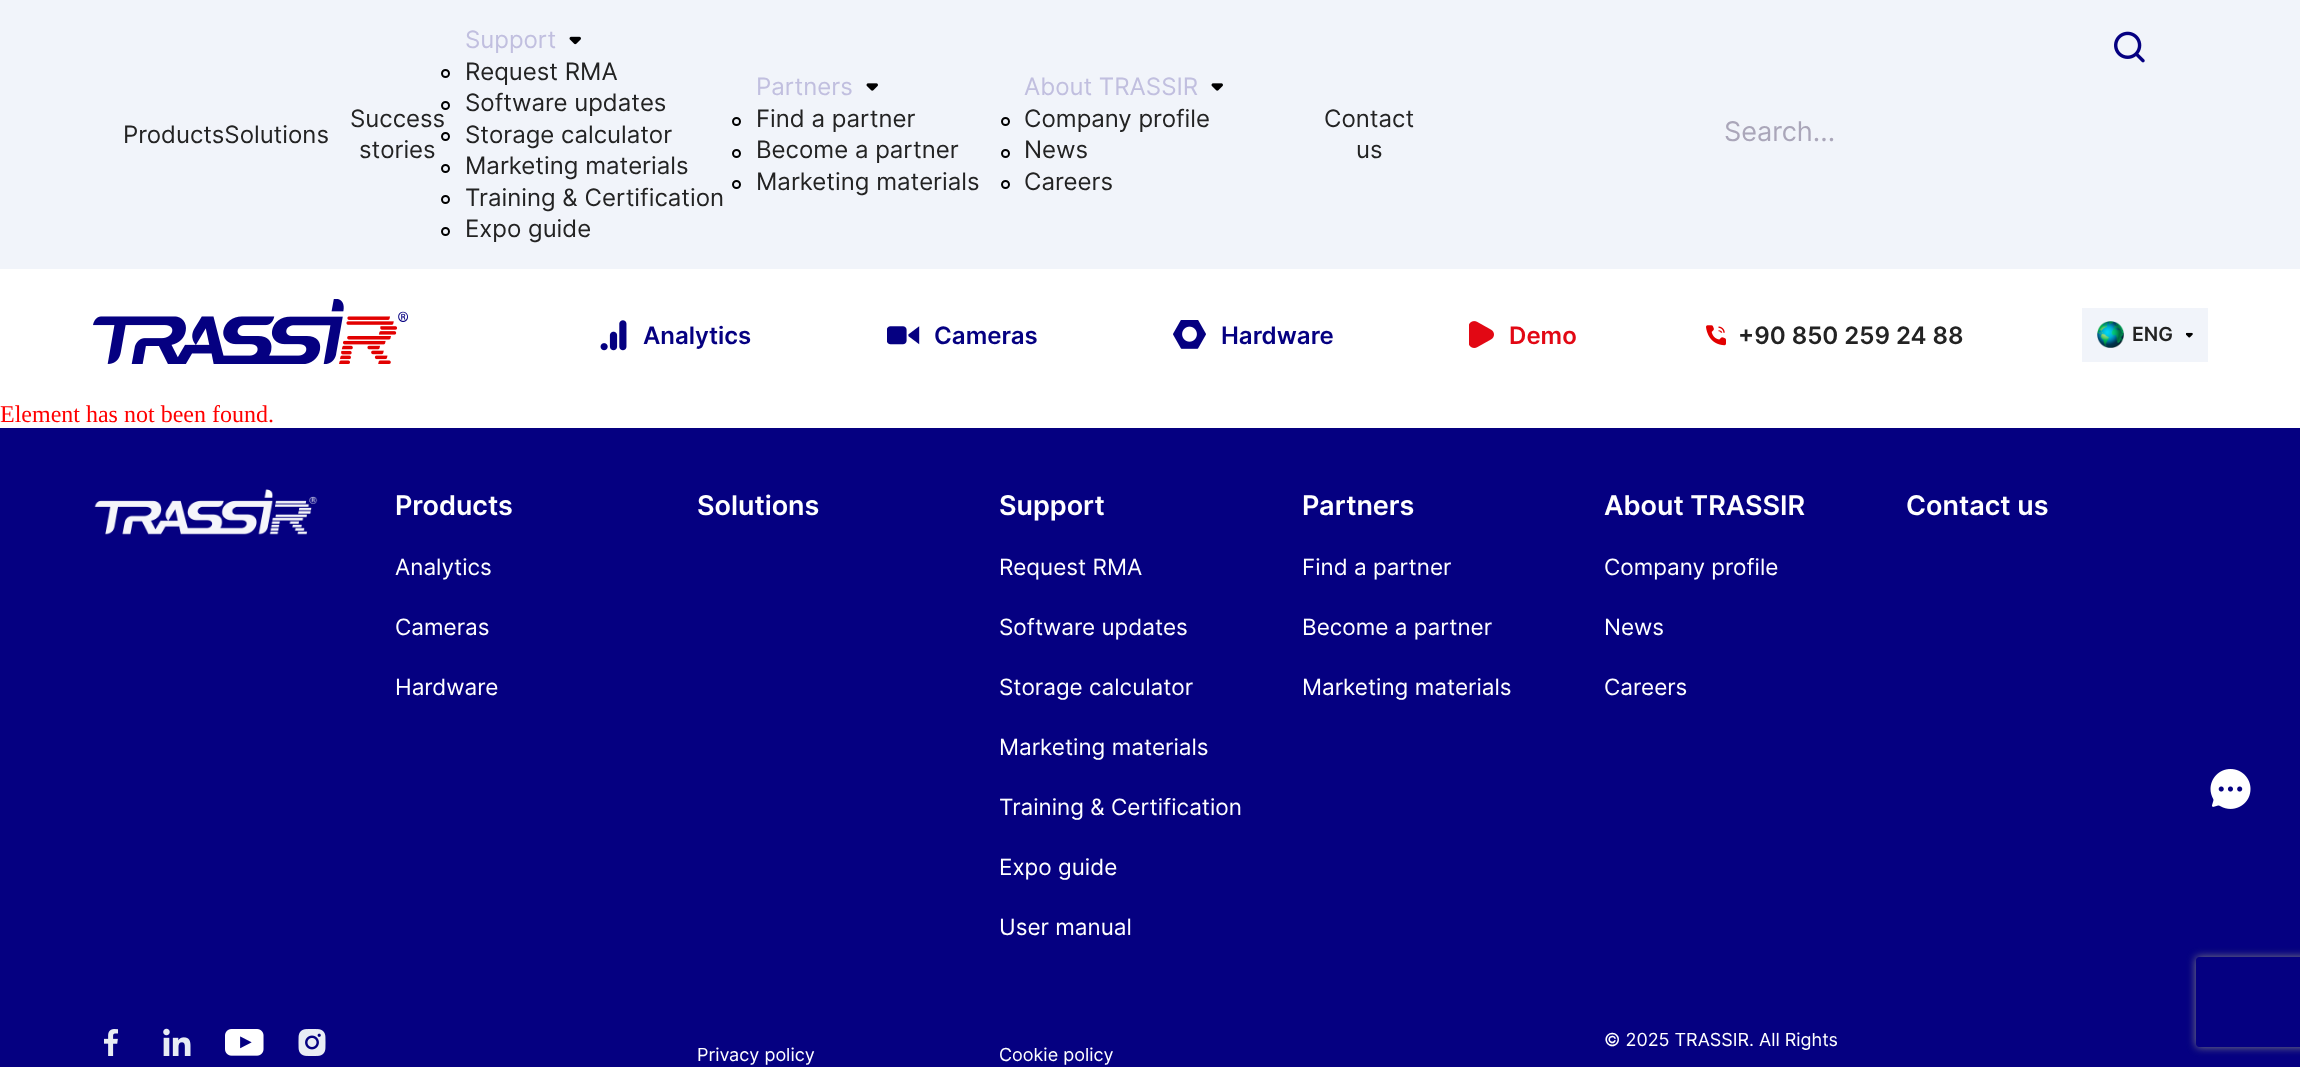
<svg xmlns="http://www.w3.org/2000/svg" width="2300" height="1067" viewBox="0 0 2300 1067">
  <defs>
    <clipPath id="clip1"><path d="M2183 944H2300V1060H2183ZM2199 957H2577C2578.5 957 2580 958.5 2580 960V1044C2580 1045.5 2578.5 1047 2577 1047H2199C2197.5 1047 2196 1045.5 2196 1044V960C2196 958.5 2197.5 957 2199 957Z" clip-rule="evenodd"/></clipPath>
  </defs>
  <rect width="100%" height="100%" fill="rgb(255,255,255)"/>
  <rect x="0" y="0" width="2300" height="269" fill="rgb(241,244,250)"/>
  <g font-family="Inter" font-size="24" fill="rgb(35,35,35)">
    <text x="123" y="143">ProductsSolutions</text>
    <text x="350" y="127">Success</text>
    <text x="359" y="158">stories</text>
  </g>
  <text x="465" y="48" font-family="Inter" font-size="24" fill="rgb(193,191,223)">Support</text>
  <image x="569" y="36" width="12" height="9" href="pic1.png"/>
  <circle cx="445.5" cy="73.5" r="3.5" fill="none" stroke="rgb(0,0,0)" stroke-width="2"/>
  <text x="465" y="80" font-family="Inter" font-size="24" fill="rgb(35,35,35)">Request RMA</text>
  <circle cx="445.5" cy="105.5" r="3.5" fill="none" stroke="rgb(0,0,0)" stroke-width="2"/>
  <text x="465" y="111" font-family="Inter" font-size="24" fill="rgb(35,35,35)">Software updates</text>
  <circle cx="445.5" cy="136.5" r="3.5" fill="none" stroke="rgb(0,0,0)" stroke-width="2"/>
  <text x="465" y="143" font-family="Inter" font-size="24" fill="rgb(35,35,35)">Storage calculator</text>
  <circle cx="445.5" cy="168.5" r="3.5" fill="none" stroke="rgb(0,0,0)" stroke-width="2"/>
  <text x="465" y="174" font-family="Inter" font-size="24" fill="rgb(35,35,35)">Marketing materials</text>
  <circle cx="445.5" cy="199.5" r="3.5" fill="none" stroke="rgb(0,0,0)" stroke-width="2"/>
  <text x="465" y="206" font-family="Inter" font-size="24" fill="rgb(35,35,35)">Training &amp; Certification</text>
  <circle cx="445.5" cy="231.5" r="3.5" fill="none" stroke="rgb(0,0,0)" stroke-width="2"/>
  <text x="465" y="237" font-family="Inter" font-size="24" fill="rgb(35,35,35)">Expo guide</text>
  <text x="756" y="95" font-family="Inter" font-size="24" fill="rgb(193,191,223)">Partners</text>
  <image x="866" y="83" width="12" height="8" href="pic2.png"/>
  <circle cx="736.5" cy="121.5" r="3.5" fill="none" stroke="rgb(0,0,0)" stroke-width="2"/>
  <text x="756" y="127" font-family="Inter" font-size="24" fill="rgb(35,35,35)">Find a partner</text>
  <circle cx="736.5" cy="153.5" r="3.5" fill="none" stroke="rgb(0,0,0)" stroke-width="2"/>
  <text x="756" y="158" font-family="Inter" font-size="24" fill="rgb(35,35,35)">Become a partner</text>
  <circle cx="736.5" cy="184.5" r="3.5" fill="none" stroke="rgb(0,0,0)" stroke-width="2"/>
  <text x="756" y="190" font-family="Inter" font-size="24" fill="rgb(35,35,35)">Marketing materials</text>
  <text x="1024" y="95" font-family="Inter" font-size="24" fill="rgb(193,191,223)">About TRASSIR</text>
  <image x="1211" y="83" width="12" height="8" href="pic2.png"/>
  <circle cx="1005.5" cy="121.5" r="3.5" fill="none" stroke="rgb(0,0,0)" stroke-width="2"/>
  <text x="1024" y="127" font-family="Inter" font-size="24" fill="rgb(35,35,35)">Company profile</text>
  <circle cx="1005.5" cy="153.5" r="3.5" fill="none" stroke="rgb(0,0,0)" stroke-width="2"/>
  <text x="1024" y="158" font-family="Inter" font-size="24" fill="rgb(35,35,35)">News</text>
  <circle cx="1005.5" cy="184.5" r="3.5" fill="none" stroke="rgb(0,0,0)" stroke-width="2"/>
  <g font-family="Inter" font-size="24" fill="rgb(35,35,35)">
    <text x="1024" y="190">Сareers</text>
    <text x="1324" y="127">Contact</text>
    <text x="1356" y="158">us</text>
  </g>
  <image x="2114" y="31" width="31" height="32" href="pic3.png"/>
  <text x="1724" y="141" font-family="Inter" font-size="27" fill="rgb(170,166,185)">Search...</text>
  <image x="93" y="299" width="315" height="65" href="pic4.png"/>
  <image x="600" y="320" width="27" height="31" href="pic5.png"/>
  <text x="643" y="344" font-family="Inter" font-size="24" font-weight="600" fill="rgb(5,0,129)">Analytics</text>
  <image x="887" y="326" width="33" height="19" href="pic6.png"/>
  <text x="934" y="344" font-family="Inter" font-size="24" font-weight="600" fill="rgb(5,0,129)">Cameras</text>
  <image x="1173" y="320" width="33" height="29" href="pic7.png"/>
  <text x="1221" y="344" font-family="Inter" font-size="24" font-weight="600" fill="rgb(5,0,129)">Hardware</text>
  <image x="1469" y="321" width="25" height="27" href="pic8.png"/>
  <text x="1509" y="344" font-family="Inter" font-size="24" font-weight="600" fill="rgb(226,8,20)">Demo</text>
  <image x="1706" y="325" width="20" height="21" href="pic9.png"/>
  <text x="1738" y="344" font-family="Inter" font-size="24" font-weight="600" fill="rgb(35,35,35)">+90 850 259 24 88</text>
  <rect x="2082" y="308" width="126" height="54" fill="rgb(241,244,250)"/>
  <image x="2097" y="321" width="27" height="27" href="pic10.png"/>
  <text x="2132" y="341" font-family="Inter" font-size="19.5" font-weight="600" fill="rgb(35,35,35)">ENG</text>
  <image x="2186" y="332" width="7" height="6" href="pic11.png"/>
  <text x="0" y="422" font-family="Liberation Serif" font-size="24" fill="rgb(255,0,0)">Element has not been found.</text>
  <rect x="0" y="428" width="2300" height="639" fill="rgb(5,0,129)"/>
  <image x="94" y="489" width="224" height="46" href="pic12.png"/>
  <text x="395" y="515" font-family="Inter" font-size="27" font-weight="600" fill="rgb(255,255,255)">Products</text>
  <g font-family="Inter" font-size="22.5" fill="rgb(255,255,255)">
    <text x="395" y="575">Analytics</text>
    <text x="395" y="635">Cameras</text>
    <text x="395" y="695">Hardware</text>
  </g>
  <g font-family="Inter" font-size="27" font-weight="600" fill="rgb(255,255,255)">
    <text x="697" y="515">Solutions</text>
    <text x="999" y="515">Support</text>
  </g>
  <g font-family="Inter" font-size="22.5" fill="rgb(255,255,255)">
    <text x="999" y="575">Request RMA</text>
    <text x="999" y="635">Software updates</text>
    <text x="999" y="695">Storage calculator</text>
    <text x="999" y="755">Marketing materials</text>
    <text x="999" y="815">Training &amp; Certification</text>
    <text x="999" y="875">Expo guide</text>
    <text x="999" y="935">User manual</text>
  </g>
  <text x="1302" y="515" font-family="Inter" font-size="27" font-weight="600" fill="rgb(255,255,255)">Partners</text>
  <g font-family="Inter" font-size="22.5" fill="rgb(255,255,255)">
    <text x="1302" y="575">Find a partner</text>
    <text x="1302" y="635">Become a partner</text>
    <text x="1302" y="695">Marketing materials</text>
  </g>
  <text x="1604" y="515" font-family="Inter" font-size="27" font-weight="600" fill="rgb(255,255,255)">About TRASSIR</text>
  <g font-family="Inter" font-size="22.5" fill="rgb(255,255,255)">
    <text x="1604" y="575">Company profile</text>
    <text x="1604" y="635">News</text>
    <text x="1604" y="695">Сareers</text>
  </g>
  <text x="1906" y="515" font-family="Inter" font-size="27" font-weight="600" fill="rgb(255,255,255)">Contact us</text>
  <image x="104" y="1029" width="14" height="27" href="pic13.png"/>
  <image x="163" y="1028" width="28" height="28" href="pic14.png"/>
  <image x="225" y="1029" width="39" height="27" href="pic15.png"/>
  <image x="298" y="1029" width="28" height="27" href="pic16.png"/>
  <g font-family="Inter" font-size="18" fill="rgb(255,255,255)">
    <text x="1604" y="1046">© 2025 TRASSIR. All Rights</text>
    <text x="697" y="1061">Privacy policy</text>
    <text x="999" y="1061">Cookie policy</text>
  </g>
  <image x="2210" y="769" width="41" height="40" href="pic17.png"/>
  <g clip-path="url(#clip1)">
    <rect x="2196" y="957" width="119" height="90" rx="3" fill="rgb(128,128,128)" filter="blur(4px)"/>
  </g>
</svg>
